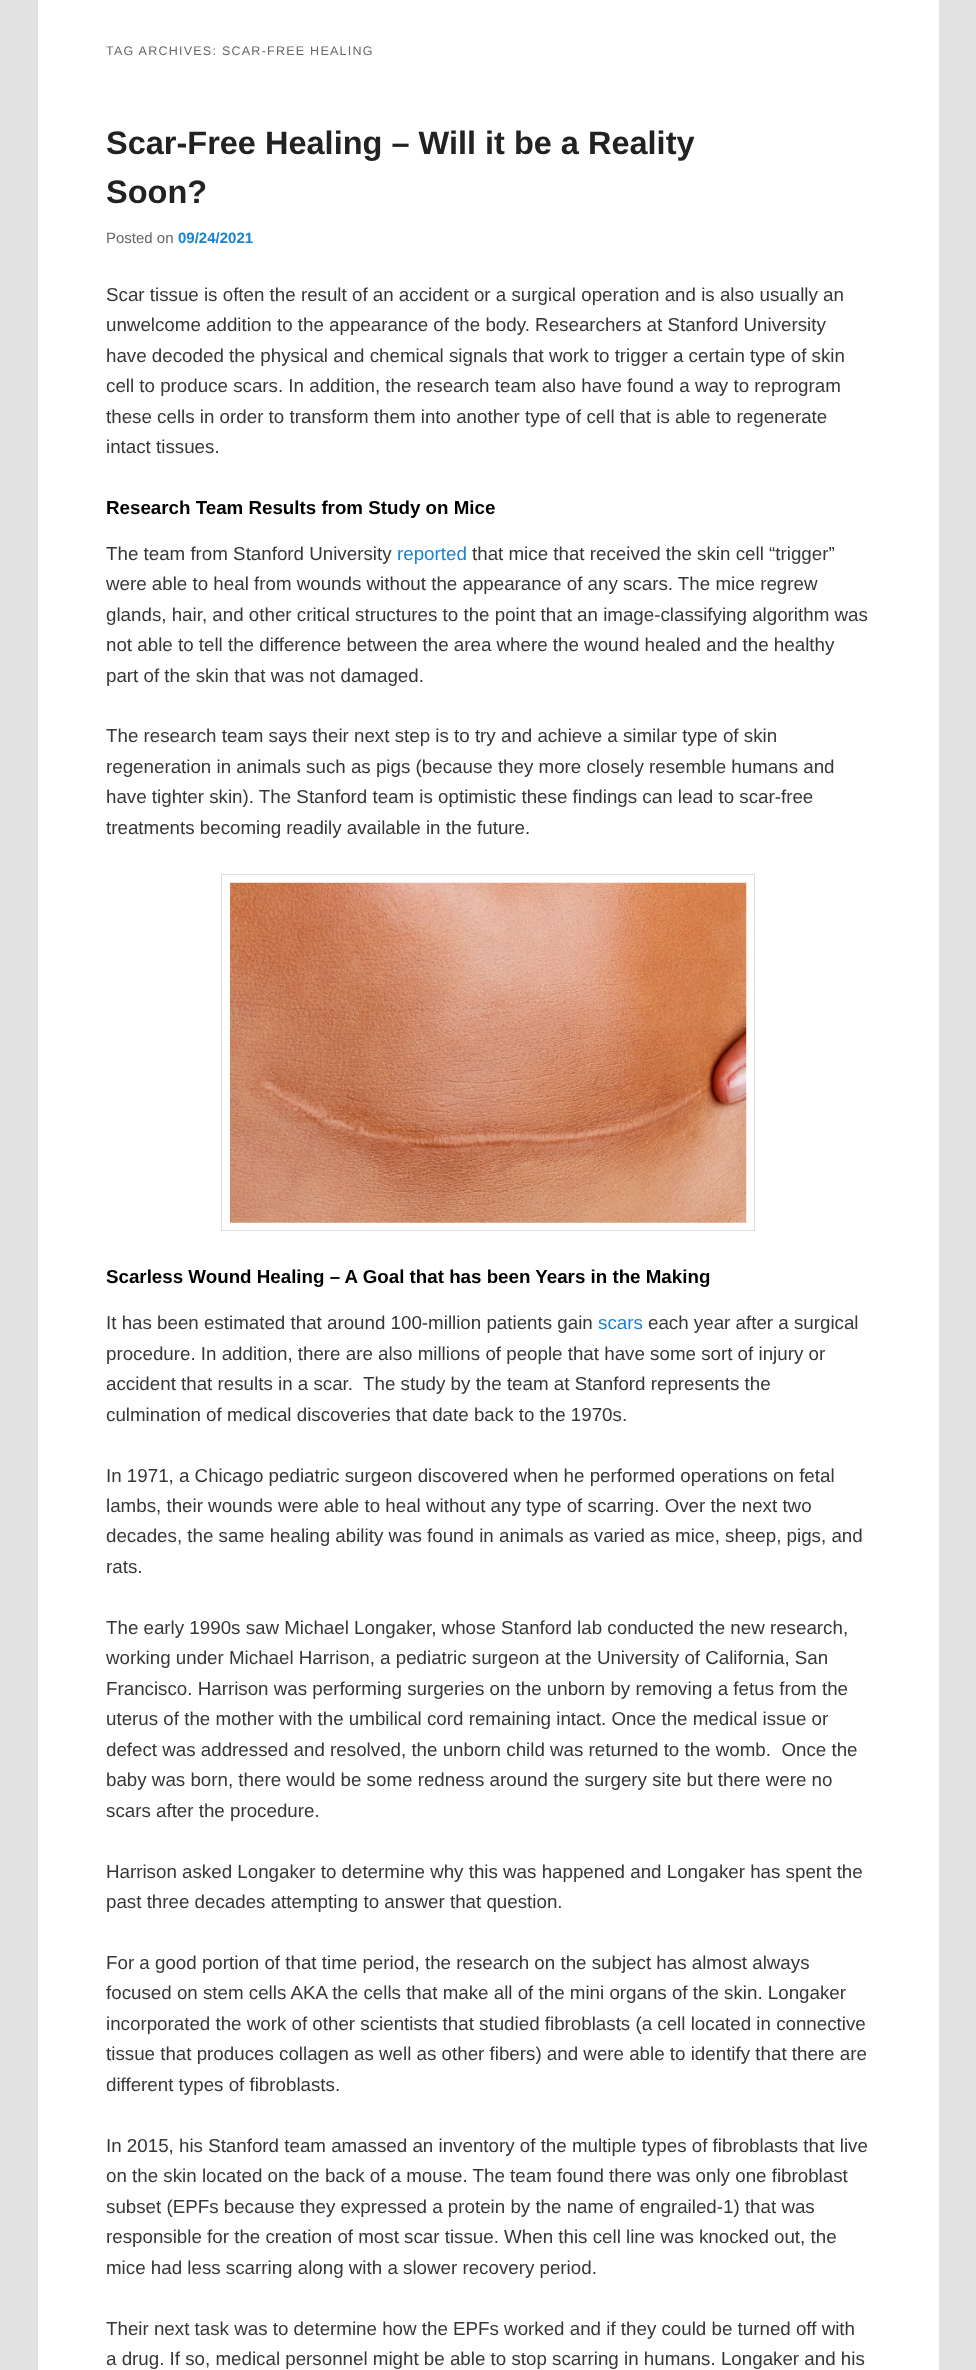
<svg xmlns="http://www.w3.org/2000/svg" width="976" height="2370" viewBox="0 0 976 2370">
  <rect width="100%" height="100%" fill="rgb(226,226,226)"/>
  <rect x="38" y="0" width="901" height="2370" fill="rgb(255,255,255)"/>
  <text x="106" y="55" font-family="Liberation Sans" font-size="12.5" letter-spacing="1.25" fill="rgb(102,102,102)">TAG ARCHIVES: SCAR-FREE HEALING</text>
  <g font-family="Liberation Sans" font-size="32.5" font-weight="bold" fill="rgb(34,34,34)">
    <text>
      <tspan x="106" y="154">Scar-Free Healing – Will it be a Reality</tspan>
      <tspan x="106" y="203">Soon?</tspan>
    </text>
  </g>
  <text x="106" y="243" font-family="Liberation Sans" font-size="15" fill="rgb(102,102,102)">Posted on</text>
  <text x="178" y="243" font-family="Liberation Sans" font-size="15" font-weight="bold" fill="rgb(25,130,209)">09/24/2021</text>
  <g font-family="Liberation Sans" font-size="18.75" fill="rgb(55,55,55)">
    <text>
      <tspan x="106" y="301">Scar tissue is often the result of an accident or a surgical operation and is also usually an</tspan>
      <tspan x="106" y="331">unwelcome addition to the appearance of the body. Researchers at Stanford University</tspan>
      <tspan x="106" y="362">have decoded the physical and chemical signals that work to trigger a certain type of skin</tspan>
      <tspan x="106" y="392">cell to produce scars. In addition, the research team also have found a way to reprogram</tspan>
      <tspan x="106" y="423">these cells in order to transform them into another type of cell that is able to regenerate</tspan>
      <tspan x="106" y="453">intact tissues.</tspan>
    </text>
  </g>
  <text x="106" y="514" font-family="Liberation Sans" font-size="18.75" font-weight="bold" fill="rgb(0,0,0)">Research Team Results from Study on Mice</text>
  <text x="106" y="560" font-family="Liberation Sans" font-size="18.75" fill="rgb(55,55,55)">The team from Stanford University</text>
  <text x="397" y="560" font-family="Liberation Sans" font-size="18.75" fill="rgb(25,130,209)">reported</text>
  <g font-family="Liberation Sans" font-size="18.75" fill="rgb(55,55,55)">
    <text x="472" y="560">that mice that received the skin cell “trigger”</text>
    <text>
      <tspan x="106" y="590">were able to heal from wounds without the appearance of any scars. The mice regrew</tspan>
      <tspan x="106" y="621">glands, hair, and other critical structures to the point that an image-classifying algorithm was</tspan>
      <tspan x="106" y="651">not able to tell the difference between the area where the wound healed and the healthy</tspan>
      <tspan x="106" y="682">part of the skin that was not damaged.</tspan>
    </text>
    <text>
      <tspan x="106" y="742">The research team says their next step is to try and achieve a similar type of skin</tspan>
      <tspan x="106" y="773">regeneration in animals such as pigs (because they more closely resemble humans and</tspan>
      <tspan x="106" y="803">have tighter skin). The Stanford team is optimistic these findings can lead to scar-free</tspan>
      <tspan x="106" y="834">treatments becoming readily available in the future.</tspan>
    </text>
  </g>
  <rect x="221.5" y="874.5" width="533" height="356" fill="none" stroke="rgb(221,221,221)"/>
  <image x="230" y="882" width="517" height="341" href="pic1.png"/>
  <text x="106" y="1283" font-family="Liberation Sans" font-size="18.75" font-weight="bold" fill="rgb(0,0,0)">Scarless Wound Healing – A Goal that has been Years in the Making</text>
  <text x="106" y="1329" font-family="Liberation Sans" font-size="18.75" fill="rgb(55,55,55)">It has been estimated that around 100-million patients gain</text>
  <text x="598" y="1329" font-family="Liberation Sans" font-size="18.75" fill="rgb(25,130,209)">scars</text>
  <g font-family="Liberation Sans" font-size="18.75" fill="rgb(55,55,55)">
    <text x="648" y="1329">each year after a surgical</text>
    <text xml:space="preserve"><tspan x="106" y="1360">procedure. In addition, there are also millions of people that have some sort of injury or</tspan><tspan x="106" y="1390">accident that results in a scar.  The study by the team at Stanford represents the</tspan><tspan x="106" y="1421">culmination of medical discoveries that date back to the 1970s.</tspan></text>
    <text>
      <tspan x="106" y="1482">In 1971, a Chicago pediatric surgeon discovered when he performed operations on fetal</tspan>
      <tspan x="106" y="1512">lambs, their wounds were able to heal without any type of scarring. Over the next two</tspan>
      <tspan x="106" y="1542">decades, the same healing ability was found in animals as varied as mice, sheep, pigs, and</tspan>
      <tspan x="106" y="1573">rats.</tspan>
    </text>
    <text xml:space="preserve"><tspan x="106" y="1634">The early 1990s saw Michael Longaker, whose Stanford lab conducted the new research,</tspan><tspan x="106" y="1664">working under Michael Harrison, a pediatric surgeon at the University of California, San</tspan><tspan x="106" y="1695">Francisco. Harrison was performing surgeries on the unborn by removing a fetus from the</tspan><tspan x="106" y="1725">uterus of the mother with the umbilical cord remaining intact. Once the medical issue or</tspan><tspan x="106" y="1756">defect was addressed and resolved, the unborn child was returned to the womb.  Once the</tspan><tspan x="106" y="1786">baby was born, there would be some redness around the surgery site but there were no</tspan><tspan x="106" y="1817">scars after the procedure.</tspan></text>
    <text>
      <tspan x="106" y="1878">Harrison asked Longaker to determine why this was happened and Longaker has spent the</tspan>
      <tspan x="106" y="1908">past three decades attempting to answer that question.</tspan>
    </text>
    <text>
      <tspan x="106" y="1969">For a good portion of that time period, the research on the subject has almost always</tspan>
      <tspan x="106" y="1999">focused on stem cells AKA the cells that make all of the mini organs of the skin. Longaker</tspan>
      <tspan x="106" y="2030">incorporated the work of other scientists that studied fibroblasts (a cell located in connective</tspan>
      <tspan x="106" y="2060">tissue that produces collagen as well as other fibers) and were able to identify that there are</tspan>
      <tspan x="106" y="2091">different types of fibroblasts.</tspan>
    </text>
    <text>
      <tspan x="106" y="2152">In 2015, his Stanford team amassed an inventory of the multiple types of fibroblasts that live</tspan>
      <tspan x="106" y="2182">on the skin located on the back of a mouse. The team found there was only one fibroblast</tspan>
      <tspan x="106" y="2213">subset (EPFs because they expressed a protein by the name of engrailed-1) that was</tspan>
      <tspan x="106" y="2243">responsible for the creation of most scar tissue. When this cell line was knocked out, the</tspan>
      <tspan x="106" y="2274">mice had less scarring along with a slower recovery period.</tspan>
    </text>
    <text>
      <tspan x="106" y="2335">Their next task was to determine how the EPFs worked and if they could be turned off with</tspan>
      <tspan x="106" y="2365">a drug. If so, medical personnel might be able to stop scarring in humans. Longaker and his</tspan>
    </text>
  </g>
</svg>
